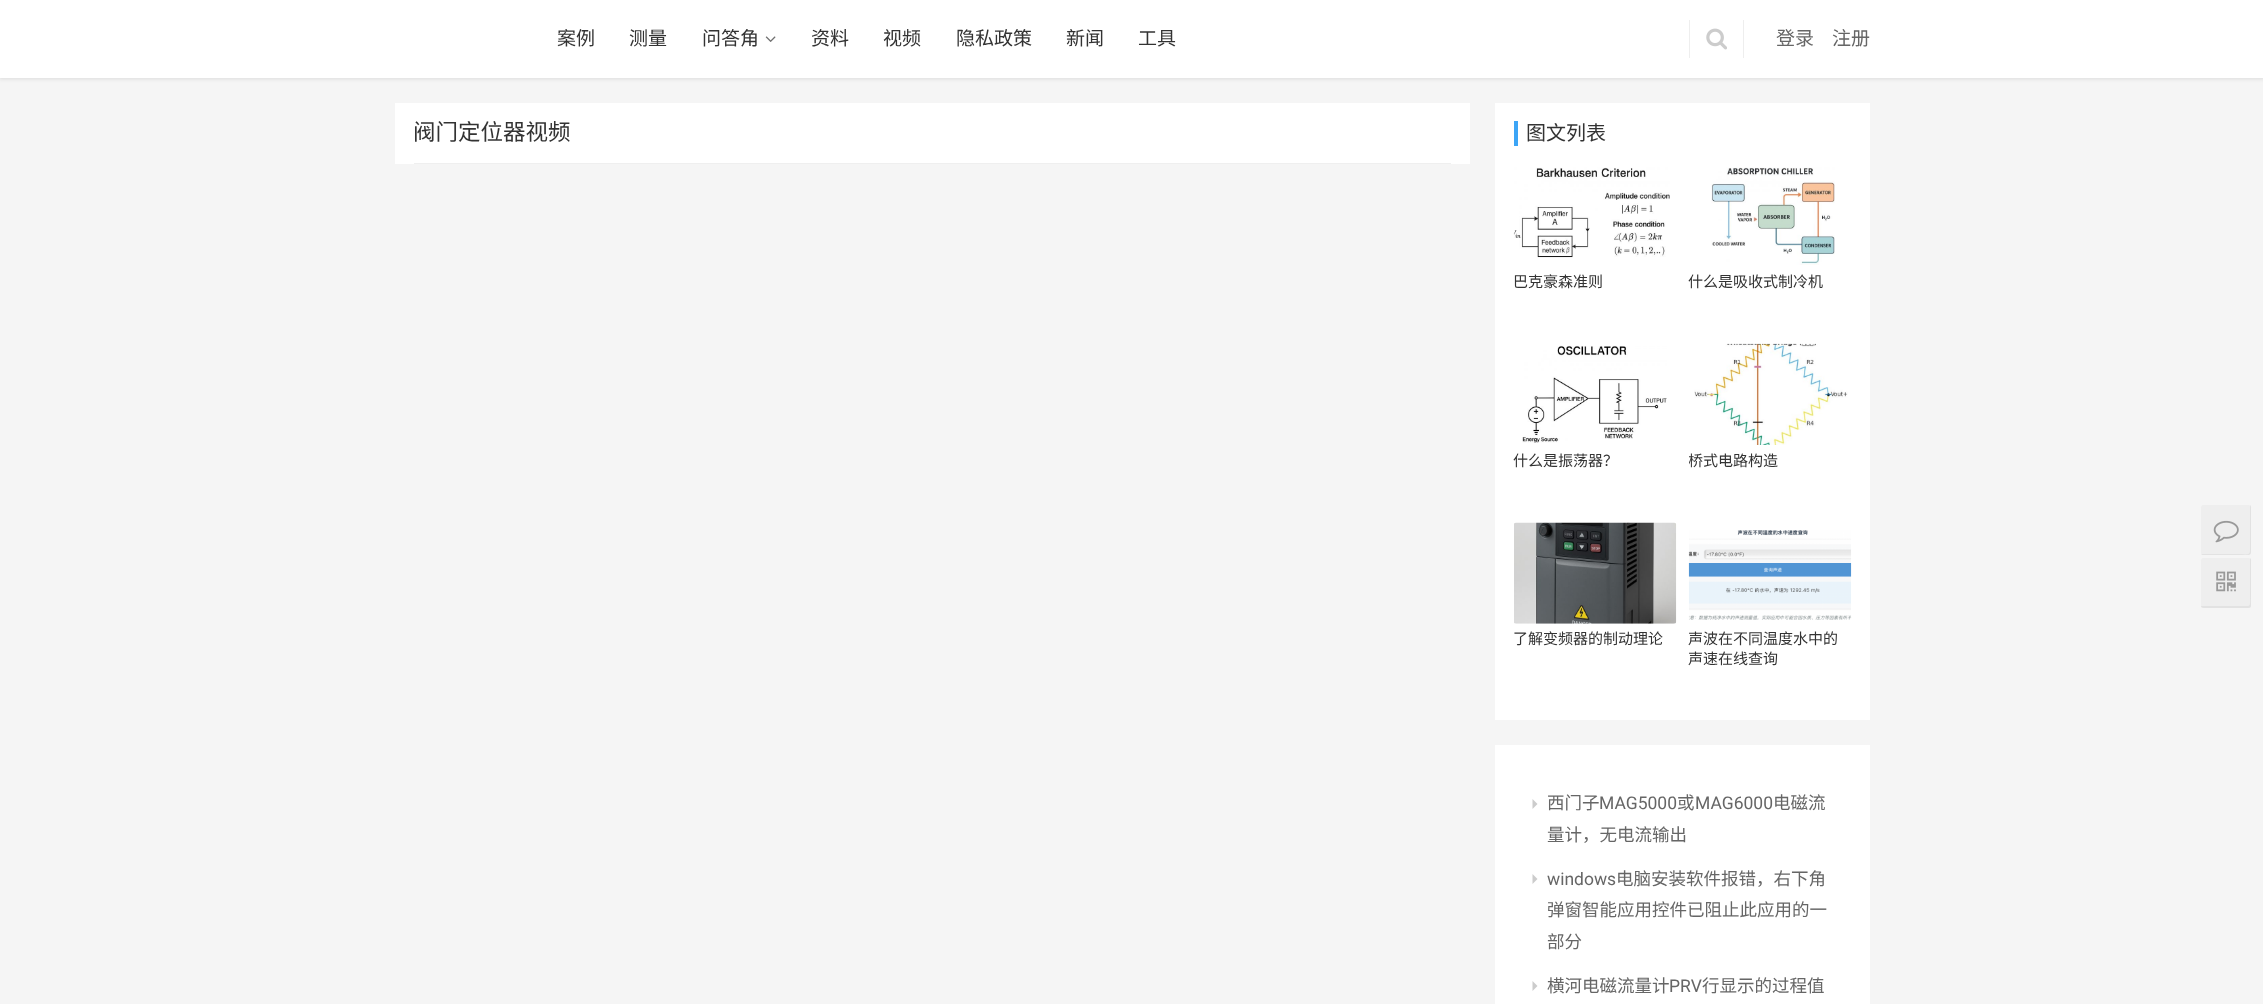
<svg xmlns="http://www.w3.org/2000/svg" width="2263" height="1004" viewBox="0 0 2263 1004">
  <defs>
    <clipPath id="clip1"><rect x="1689" y="451" width="162" height="20"/></clipPath>
  </defs>
  <rect width="100%" height="100%" fill="rgb(245,245,245)"/>
  <rect x="-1" y="-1" width="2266" height="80" fill="rgba(0,0,0,0.1)" filter="blur(2px)"/>
  <rect x="0" y="0" width="2263" height="78" fill="rgb(255,255,255)"/>
  <g font-family="Noto Sans CJK SC" font-size="19" fill="rgb(51,51,51)">
    <text x="557" y="45">案例</text>
    <text x="629" y="45">测量</text>
    <text x="702" y="45">问答角</text>
  </g>
  <image x="765" y="36" width="11" height="6" href="pic1.png"/>
  <g font-family="Noto Sans CJK SC" font-size="19" fill="rgb(51,51,51)">
    <text x="811" y="45">资料</text>
    <text x="883" y="45">视频</text>
    <text x="956" y="45">隐私政策</text>
    <text x="1066" y="45">新闻</text>
    <text x="1138" y="45">工具</text>
  </g>
  <rect x="1743" y="20" width="1" height="38" fill="rgb(238,238,238)"/>
  <rect x="1689" y="20" width="1" height="38" fill="rgb(238,238,238)"/>
  <image x="1706" y="28" width="21" height="22" href="pic2.png"/>
  <g font-family="Noto Sans CJK SC" font-size="19" fill="rgb(102,102,102)">
    <text x="1776" y="45">登录</text>
    <text x="1832" y="45">注册</text>
  </g>
  <rect x="395" y="103" width="1075" height="61" fill="rgb(255,255,255)"/>
  <rect x="414" y="163" width="1037" height="1" fill="rgb(239,239,239)"/>
  <text x="413" y="140" font-family="Noto Sans CJK SC" font-size="22.5" fill="rgb(51,51,51)">阀门定位器视频</text>
  <rect x="1495" y="103" width="375" height="617" fill="rgb(255,255,255)"/>
  <rect x="1514" y="121" width="4" height="25" fill="rgb(60,165,246)"/>
  <text x="1526" y="140" font-family="Noto Sans CJK SC" font-size="20" fill="rgb(51,51,51)">图文列表</text>
  <image x="1513" y="167" width="157" height="91" href="pic3.png"/>
  <text x="1513" y="287" font-family="Noto Sans CJK SC" font-size="15" fill="rgb(51,51,51)">巴克豪森准则</text>
  <image x="1711" y="167" width="124" height="98" href="pic4.png"/>
  <text x="1688" y="287" font-family="Noto Sans CJK SC" font-size="15" fill="rgb(51,51,51)">什么是吸收式制冷机</text>
  <image x="1522" y="345" width="145" height="98" href="pic5.png"/>
  <text x="1513" y="466" font-family="Noto Sans CJK SC" font-size="15" fill="rgb(51,51,51)">什么是振荡器？</text>
  <image x="1694" y="343" width="154" height="102" href="pic6.png"/>
  <g clip-path="url(#clip1)">
    <text x="1688" y="466" font-family="Noto Sans CJK SC" font-size="15" fill="rgb(51,51,51)">桥式电路构造</text>
  </g>
  <image x="1514" y="522" width="163" height="102" href="pic7.png"/>
  <text x="1513" y="644" font-family="Noto Sans CJK SC" font-size="15" fill="rgb(51,51,51)">了解变频器的制动理论</text>
  <image x="1688" y="530" width="164" height="90" href="pic8.png"/>
  <g font-family="Noto Sans CJK SC" font-size="15" fill="rgb(51,51,51)">
    <text>
      <tspan x="1688" y="644">声波在不同温度水中的</tspan>
      <tspan x="1688" y="664">声速在线查询</tspan>
    </text>
  </g>
  <rect x="1495" y="745" width="375" height="259" fill="rgb(255,255,255)"/>
  <path d="M1532.5 809V799L1537.5 804Z" fill="rgb(204,204,204)"/>
  <text x="1547" y="809" font-family="Noto Sans CJK SC" font-size="17.5" fill="rgb(102,102,102)">西门子</text>
  <text x="1599" y="809" font-family="Roboto" font-size="17.5" fill="rgb(102,102,102)">MAG5000</text>
  <text x="1677" y="809" font-family="Noto Sans CJK SC" font-size="17.5" fill="rgb(102,102,102)">或</text>
  <text x="1695" y="809" font-family="Roboto" font-size="17.5" fill="rgb(102,102,102)">MAG6000</text>
  <g font-family="Noto Sans CJK SC" font-size="17.5" fill="rgb(102,102,102)">
    <text x="1773" y="809">电磁流</text>
    <text x="1547" y="841">量计，无电流输出</text>
  </g>
  <path d="M1532.5 884V874L1537.5 879Z" fill="rgb(204,204,204)"/>
  <text x="1547" y="885" font-family="Roboto" font-size="17.5" fill="rgb(102,102,102)">windows</text>
  <g font-family="Noto Sans CJK SC" font-size="17.5" fill="rgb(102,102,102)">
    <text x="1616" y="885">电脑安装软件报错，右下角</text>
    <text>
      <tspan x="1547" y="916">弹窗智能应用控件已阻止此应用的一</tspan>
      <tspan x="1547" y="948">部分</tspan>
    </text>
  </g>
  <path d="M1532.5 991V981L1537.5 986Z" fill="rgb(204,204,204)"/>
  <text x="1547" y="992" font-family="Noto Sans CJK SC" font-size="17.5" fill="rgb(102,102,102)">横河电磁流量计</text>
  <text x="1669" y="992" font-family="Roboto" font-size="17.5" fill="rgb(102,102,102)">PRV</text>
  <text x="1702" y="992" font-family="Noto Sans CJK SC" font-size="17.5" fill="rgb(102,102,102)">行显示的过程值</text>
  <rect x="2201" y="505" width="50" height="50" rx="2.5" fill="rgb(238,238,238)"/>
  <path d="M2201 554C2202 555 2203 555 2204 555H2248C2250 555 2251 554 2251 552V508C2251 507 2251 506 2250 505V551C2250 556 2244 554 2240 554Z" fill="rgb(226,226,226)"/>
  <image x="2213" y="520" width="26" height="23" href="pic9.png"/>
  <rect x="2201" y="558" width="50" height="50" rx="2.5" fill="rgb(238,238,238)"/>
  <path d="M2201 606C2201 607 2202 608 2204 608H2248C2250 608 2251 607 2251 606V560C2251 560 2251 559 2250 558V596C2250 600 2251 606 2248 606Z" fill="rgb(226,226,226)"/>
  <image x="2216" y="571" width="20" height="21" href="pic10.png"/>
</svg>
